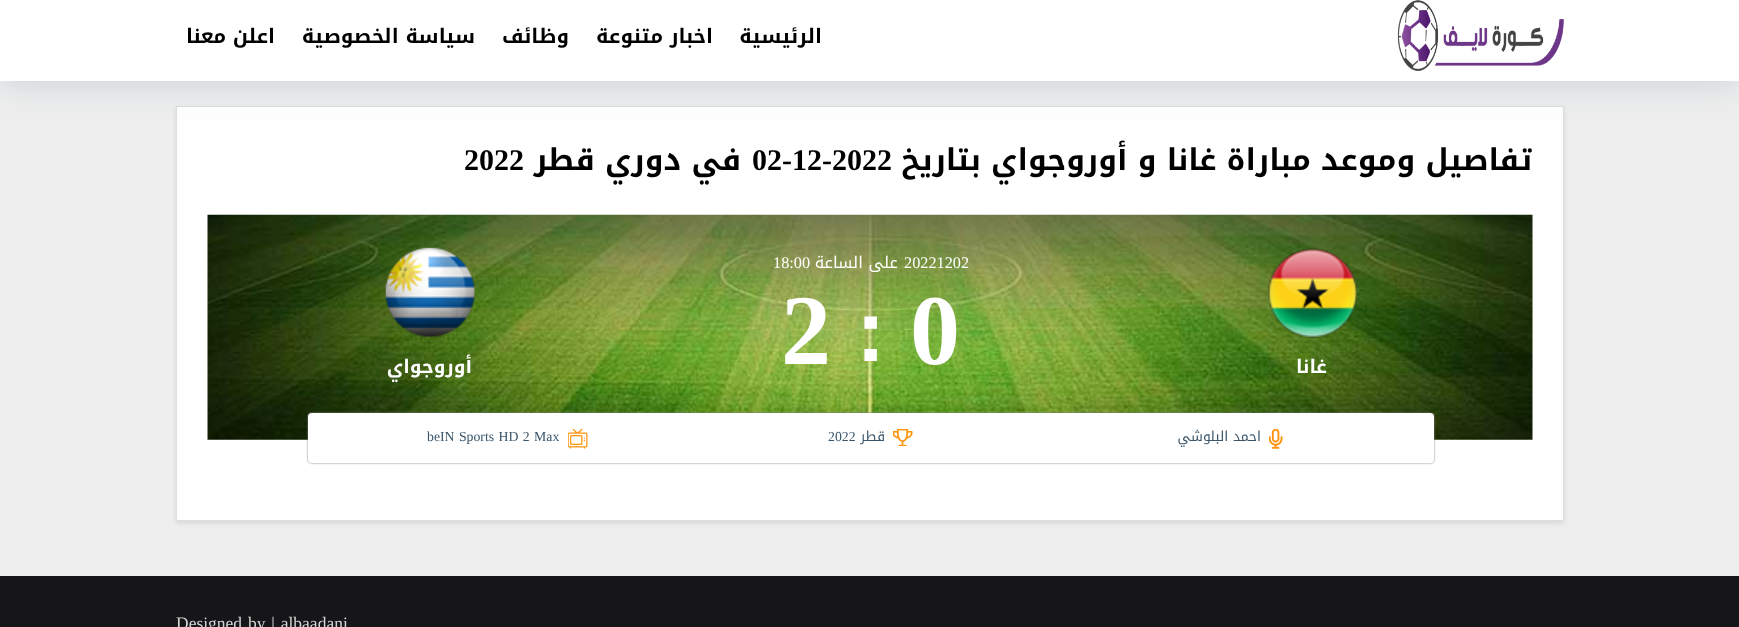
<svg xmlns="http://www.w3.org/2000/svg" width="1739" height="627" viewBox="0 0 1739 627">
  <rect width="100%" height="100%" fill="rgb(238,238,238)"/>
  <rect x="176" y="108" width="1388" height="415" fill="rgba(0,0,0,0.1)" filter="blur(2.5px)"/>
  <rect x="176.5" y="106.5" width="1387" height="414" fill="rgb(255,255,255)" stroke="rgb(221,223,226)"/>
  <rect x="0" y="-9" width="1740" height="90" fill="rgba(7,51,84,0.17)" filter="blur(19px)"/>
  <rect x="0" y="0" width="1739" height="81" fill="rgb(255,255,255)"/>
  <image x="1397" y="0" width="167" height="71" href="pic1.png"/>
  <g font-family="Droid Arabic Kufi" font-size="20" font-weight="bold" direction="rtl" fill="rgb(0,0,0)">
    <text x="822" y="43">الرئيسية</text>
    <text x="713" y="43">اخبار متنوعة</text>
    <text x="569" y="43">وظائف</text>
    <text x="475" y="43">سياسة الخصوصية</text>
    <text x="275" y="43">اعلن معنا</text>
  </g>
  <text x="1532" y="170" font-family="Droid Arabic Kufi" font-size="30" font-weight="bold" direction="rtl" fill="rgb(0,0,0)">تفاصيل وموعد مباراة غانا و أوروجواي بتاريخ</text>
  <text x="752" y="170" font-family="Liberation Serif" font-size="30" font-weight="bold" fill="rgb(0,0,0)">02-12-2022</text>
  <text x="741" y="170" font-family="Droid Arabic Kufi" font-size="30" font-weight="bold" direction="rtl" fill="rgb(0,0,0)">في دوري قطر</text>
  <text x="464" y="170" font-family="Liberation Serif" font-size="30" font-weight="bold" fill="rgb(0,0,0)">2022</text>
  <image x="207" y="214" width="1326" height="226" href="pic2.png"/>
  <text x="904" y="268" font-family="Liberation Serif" font-size="16.25" fill="rgb(255,255,255)">20221202</text>
  <text x="898" y="268" font-family="Droid Arabic Kufi" font-size="16.25" direction="rtl" fill="rgb(255,255,255)">على الساعة</text>
  <text x="773" y="268" font-family="Liberation Serif" font-size="16.25" fill="rgb(255,255,255)">18:00</text>
  <text x="910" y="364" font-family="Liberation Serif" font-size="100" font-weight="bold" fill="rgb(255,255,255)">0</text>
  <text x="856" y="361" font-family="Liberation Sans" font-size="88" font-weight="bold" fill="rgb(255,255,255)">:</text>
  <text x="781" y="364" font-family="Liberation Serif" font-size="100" font-weight="bold" fill="rgb(255,255,255)">2</text>
  <image x="1268" y="248" width="89" height="91" href="pic3.png"/>
  <text x="1327" y="373" font-family="Droid Arabic Kufi" font-size="18.75" font-weight="bold" direction="rtl" fill="rgb(255,255,255)">غانا</text>
  <image x="385" y="247" width="90" height="90" href="pic4.png"/>
  <text x="472" y="373" font-family="Droid Arabic Kufi" font-size="18.75" font-weight="bold" direction="rtl" fill="rgb(255,255,255)">أوروجواي</text>
  <rect x="308" y="413" width="1126" height="50" rx="4" fill="rgb(128,128,128)" filter="blur(1px)"/>
  <rect x="308" y="413" width="1126" height="50" rx="4" fill="rgb(255,255,255)"/>
  <image x="1269" y="429" width="14" height="20" href="pic5.png"/>
  <text x="1261" y="441" font-family="Droid Arabic Kufi" font-size="13.75" direction="rtl" fill="rgb(58,85,106)">احمد البلوشي</text>
  <image x="893" y="429" width="20" height="17" href="pic6.png"/>
  <text x="885" y="441" font-family="Droid Arabic Kufi" font-size="13.75" direction="rtl" fill="rgb(58,85,106)">قطر</text>
  <text x="828" y="441" font-family="Liberation Serif" font-size="13.75" fill="rgb(58,85,106)">2022</text>
  <image x="568" y="429" width="20" height="20" href="pic7.png"/>
  <text x="427" y="441" word-spacing="1" font-family="Liberation Serif" font-size="13.75" fill="rgb(58,85,106)">beIN Sports HD 2 Max</text>
  <rect x="0" y="576" width="1739" height="51" fill="rgb(22,22,25)"/>
  <text x="176" y="629" word-spacing="1.5" font-family="Liberation Serif" font-size="17.5" fill="rgb(213,213,213)">Designed by | albaadani</text>
</svg>
